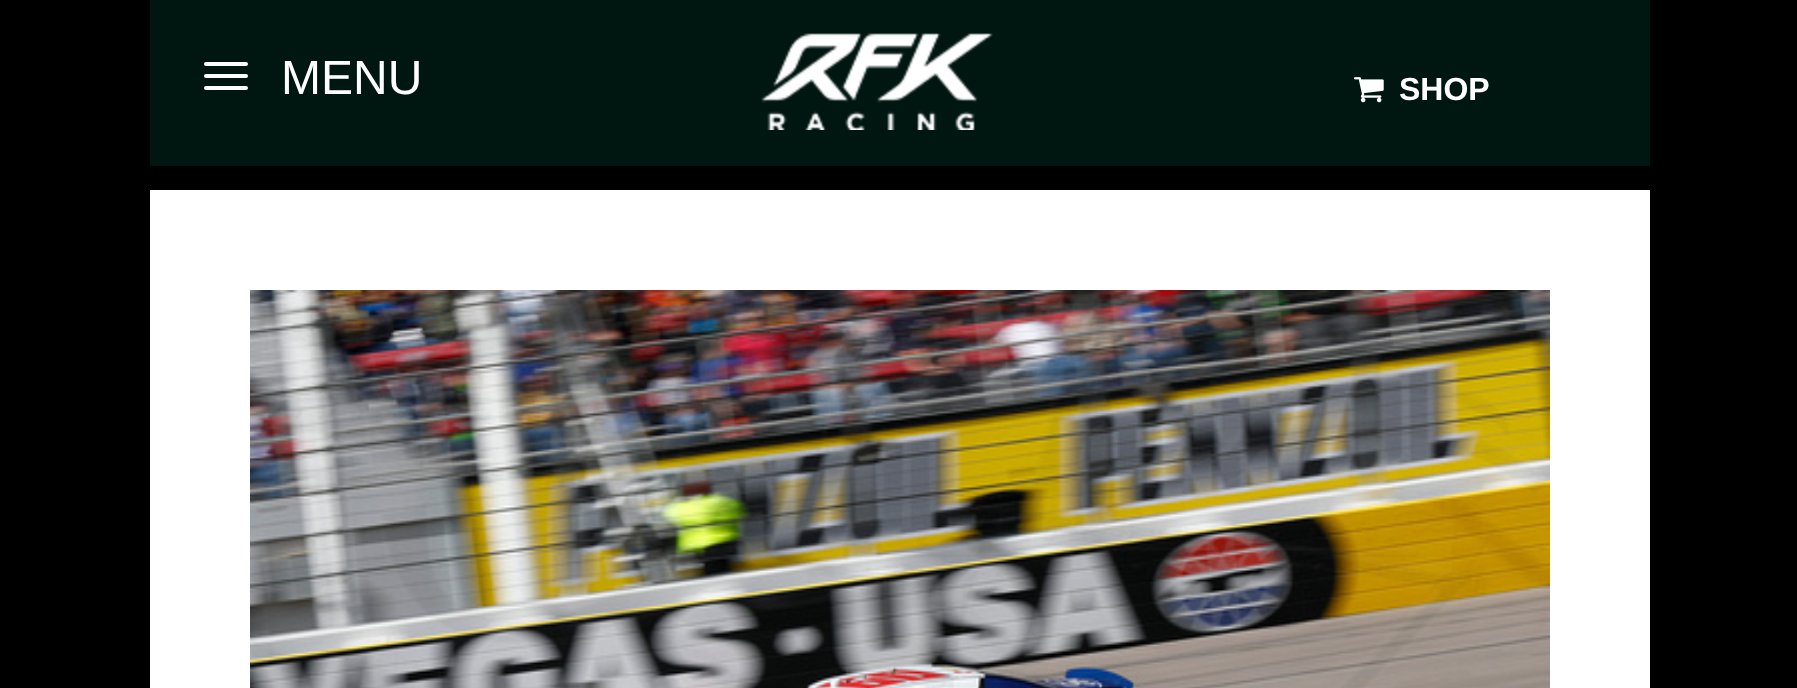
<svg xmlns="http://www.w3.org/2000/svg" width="1797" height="688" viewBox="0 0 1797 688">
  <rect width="100%" height="100%" fill="rgb(0,0,0)"/>
  <rect x="150" y="0" width="1500" height="166" fill="rgb(0,23,17)"/>
  <rect x="204" y="62" width="44" height="4" rx="2" fill="rgb(255,255,255)"/>
  <text x="281" y="94" font-family="Liberation Sans" font-size="48" fill="rgb(255,255,255)">MENU</text>
  <rect x="204" y="74" width="44" height="4" rx="2" fill="rgb(255,255,255)"/>
  <rect x="204" y="86" width="44" height="4" rx="2" fill="rgb(255,255,255)"/>
  <image x="761" y="33" width="232" height="97" href="pic1.png"/>
  <image x="1354" y="77" width="30" height="26" href="pic2.png"/>
  <text x="1399" y="100" font-family="Liberation Sans" font-size="32" font-weight="bold" fill="rgb(255,255,255)">SHOP</text>
  <rect x="150" y="190" width="1500" height="498" fill="rgb(255,255,255)"/>
  <image x="250" y="290" width="1300" height="398" href="pic3.png"/>
</svg>
